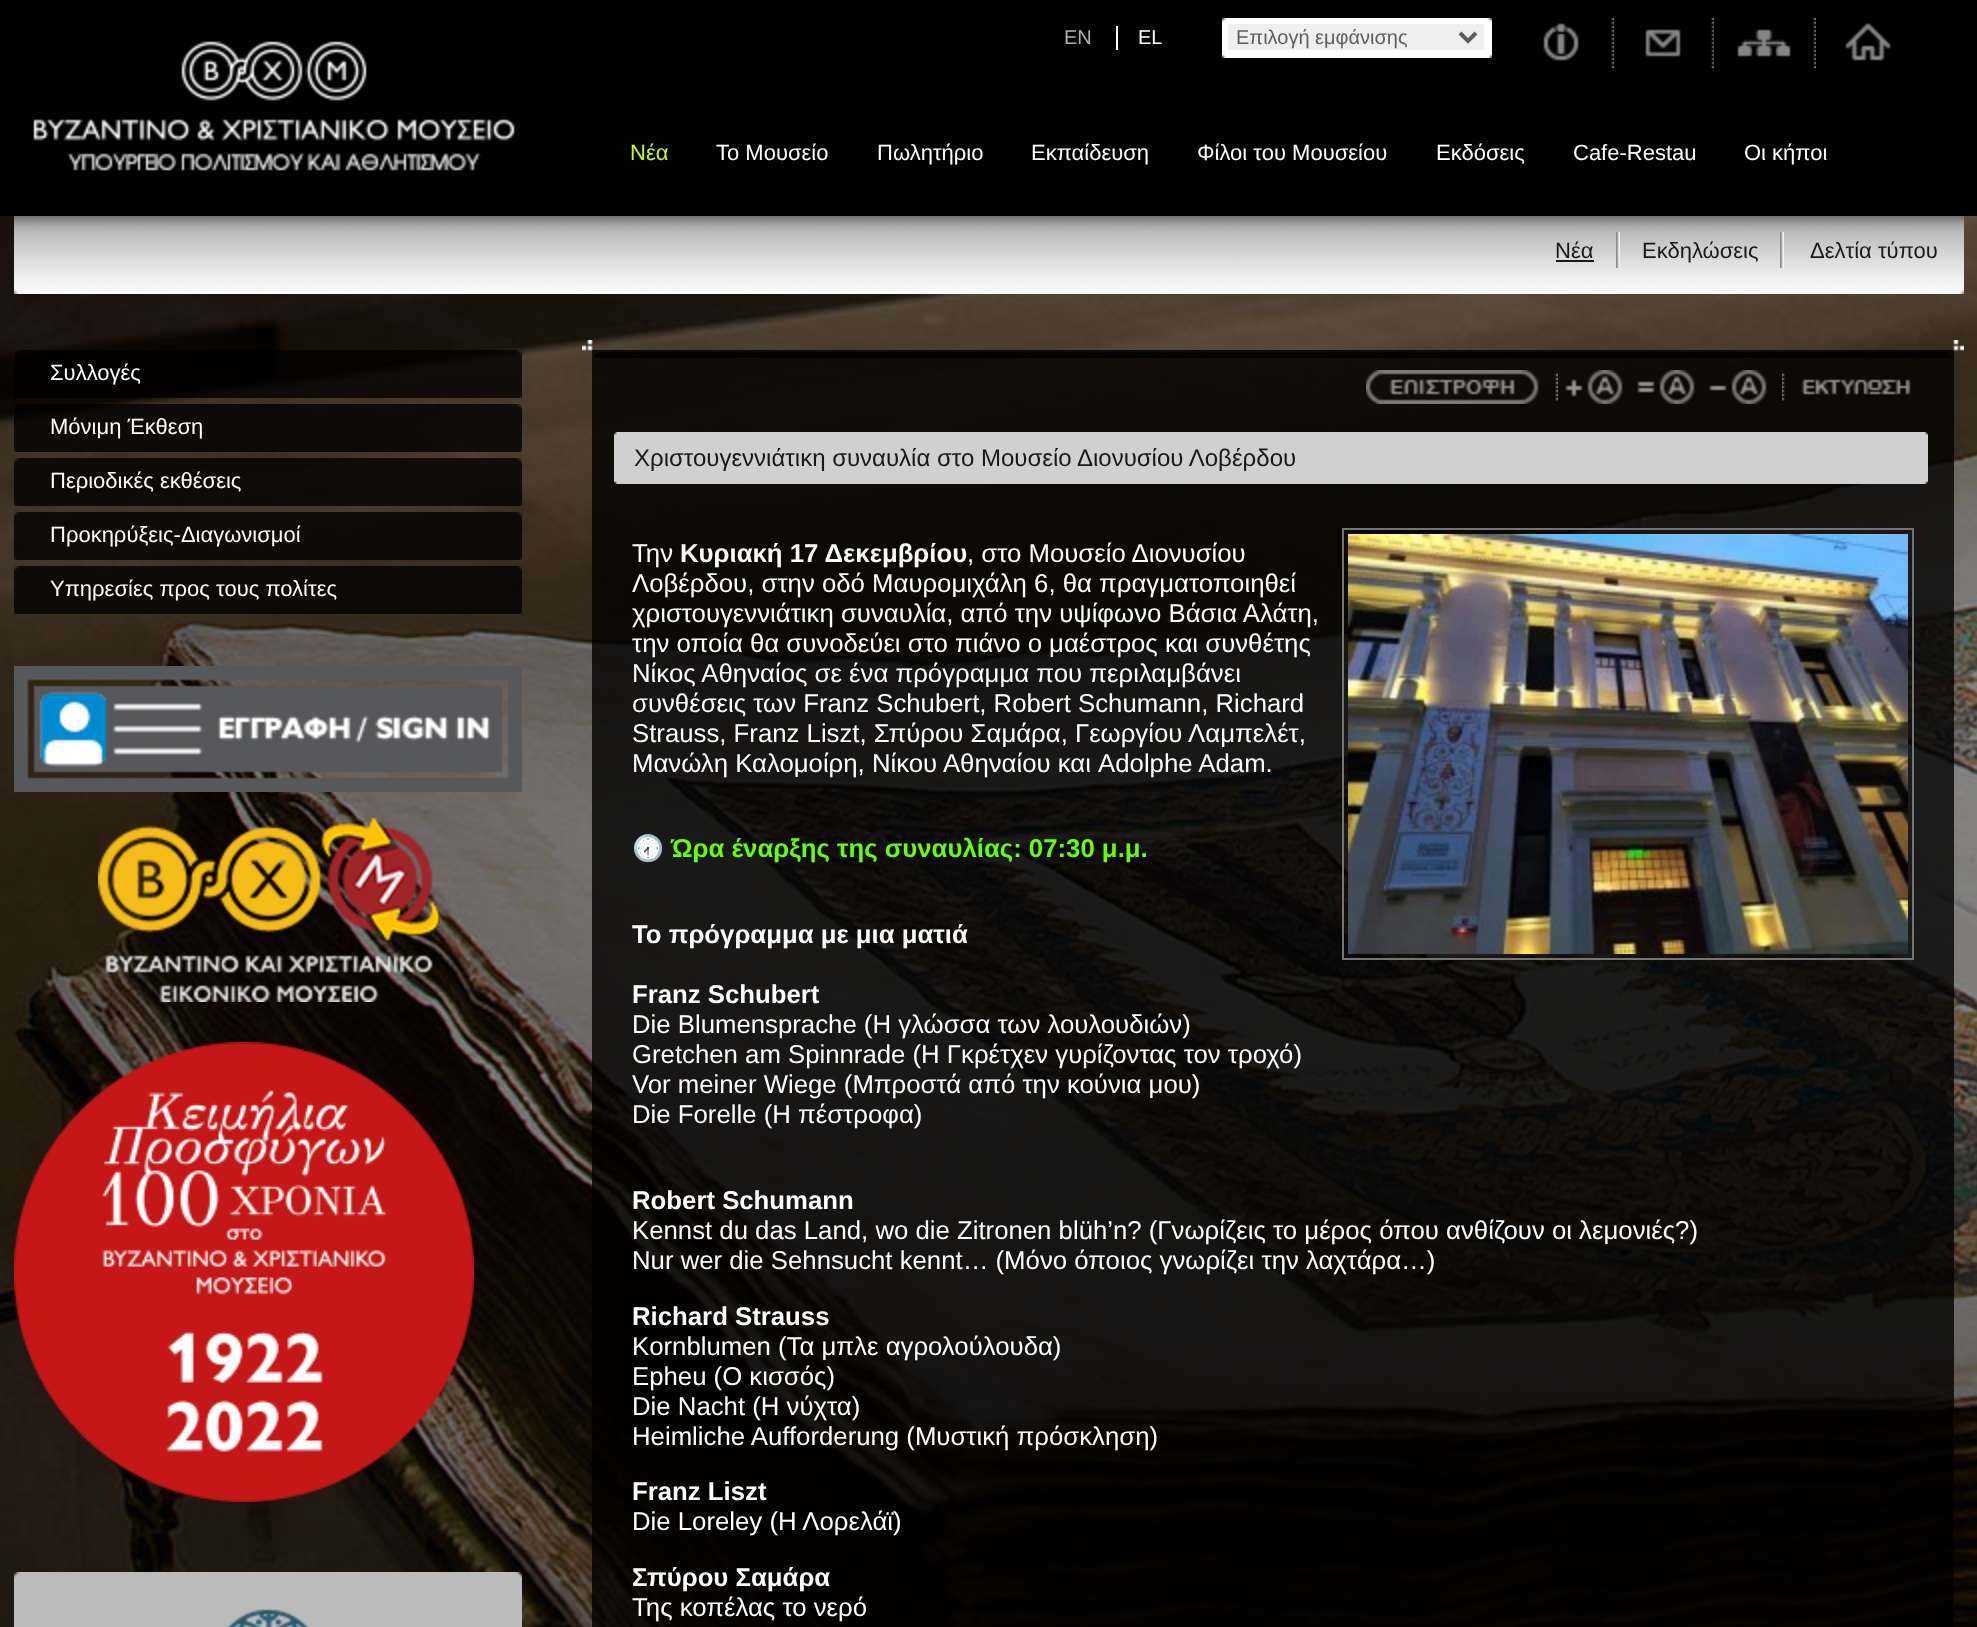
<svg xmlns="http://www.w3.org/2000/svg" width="1977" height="1627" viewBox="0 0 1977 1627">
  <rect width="100%" height="100%" fill="rgb(255,255,255)"/>
  <image x="0" y="216" width="1977" height="1411" href="pic1.png"/>
  <rect x="0" y="0" width="1977" height="216" fill="rgb(0,0,0)"/>
  <rect x="1116" y="26" width="2" height="24" fill="rgb(255,255,255)"/>
  <text x="1064" y="44" font-family="Liberation Sans" font-size="20" fill="rgb(176,176,176)">EN</text>
  <text x="1138" y="44" font-family="Liberation Sans" font-size="20" fill="rgb(255,255,255)">EL</text>
  <image x="1222" y="18" width="270" height="40" href="pic2.png"/>
  <rect x="1228" y="24" width="256" height="26" fill="rgb(239,239,239)"/>
  <path d="M1460 33L1468 41L1476 33" fill="none" stroke="rgb(94,94,94)" stroke-width="4"/>
  <text x="1236" y="44" font-family="Liberation Sans" font-size="20" fill="rgb(94,94,94)">Επιλογή εμφάνισης</text>
  <image x="1543" y="18" width="71" height="50" href="pic3.png"/>
  <image x="1645" y="18" width="69" height="50" href="pic4.png"/>
  <image x="1737" y="18" width="79" height="50" href="pic5.png"/>
  <image x="1845" y="23" width="46" height="38" href="pic6.png"/>
  <image x="33" y="41" width="482" height="130" href="pic7.png"/>
  <text x="630" y="160" font-family="Liberation Sans" font-size="22" fill="rgb(199,255,0)">Νέα</text>
  <g font-family="Liberation Sans" font-size="22" fill="rgb(255,255,255)">
    <text x="716" y="160">Το Μουσείο</text>
    <text x="877" y="160">Πωλητήριο</text>
    <text x="1031" y="160">Εκπαίδευση</text>
    <text x="1197" y="160">Φίλοι του Μουσείου</text>
    <text x="1436" y="160">Εκδόσεις</text>
    <text x="1573" y="160">Cafe-Restau</text>
    <text x="1744" y="160">Οι κήποι</text>
  </g>
  <image x="14" y="216" width="1950" height="78" href="pic8.png"/>
  <image x="1616" y="232" width="4" height="36" href="pic9.png"/>
  <text x="1555" y="258" font-family="Liberation Sans" font-size="22" fill="rgb(24,24,24)">Νέα</text>
  <rect x="1556" y="260" width="38" height="2" fill="rgb(24,24,24)"/>
  <image x="1780" y="232" width="4" height="36" href="pic9.png"/>
  <g font-family="Liberation Sans" font-size="22" fill="rgb(24,24,24)">
    <text x="1642" y="258">Εκδηλώσεις</text>
    <text x="1810" y="258">Δελτία τύπου</text>
  </g>
  <image x="14" y="350" width="508" height="48" href="pic10.png"/>
  <text x="50" y="380" font-family="Liberation Sans" font-size="22" fill="rgb(255,255,255)">Συλλογές</text>
  <image x="14" y="404" width="508" height="48" href="pic11.png"/>
  <text x="50" y="434" font-family="Liberation Sans" font-size="22" fill="rgb(255,255,255)">Μόνιμη Έκθεση</text>
  <image x="14" y="458" width="508" height="48" href="pic12.png"/>
  <text x="50" y="488" font-family="Liberation Sans" font-size="22" fill="rgb(255,255,255)">Περιοδικές εκθέσεις</text>
  <image x="14" y="512" width="508" height="48" href="pic13.png"/>
  <text x="50" y="542" font-family="Liberation Sans" font-size="22" fill="rgb(255,255,255)">Προκηρύξεις-Διαγωνισμοί</text>
  <image x="14" y="566" width="508" height="48" href="pic14.png"/>
  <text x="50" y="596" font-family="Liberation Sans" font-size="22" fill="rgb(255,255,255)">Υπηρεσίες προς τους πολίτες</text>
  <image x="14" y="666" width="508" height="126" href="pic15.png"/>
  <image x="98" y="817" width="342" height="185" href="pic16.png"/>
  <image x="14" y="1042" width="460" height="460" href="pic17.png"/>
  <image x="14" y="1572" width="508" height="55" href="pic18.png"/>
  <image x="582" y="340" width="1382" height="18" href="pic19.png"/>
  <rect x="592" y="350" width="1362" height="1277" fill="rgba(0,0,0,0.79)"/>
  <image x="1366" y="370" width="192" height="34" href="pic20.png"/>
  <image x="1565" y="370" width="58" height="34" href="pic21.png"/>
  <image x="1637" y="370" width="58" height="34" href="pic22.png"/>
  <image x="1709" y="370" width="58" height="34" href="pic23.png"/>
  <image x="1782" y="373" width="129" height="28" href="pic24.png"/>
  <image x="614" y="432" width="1314" height="4" href="pic25.png"/>
  <image x="614" y="436" width="1314" height="48" href="pic26.png"/>
  <text x="634" y="466" font-family="Liberation Sans" font-size="24" fill="rgb(24,24,24)">Χριστουγεννιάτικη συναυλία στο Μουσείο Διονυσίου Λοβέρδου</text>
  <text x="632" y="562" font-family="Liberation Sans" font-size="25.75" fill="rgb(255,255,255)">Την</text>
  <text x="680" y="562" font-family="Liberation Sans" font-size="25.75" font-weight="bold" fill="rgb(255,255,255)">Κυριακή 17 Δεκεμβρίου</text>
  <g font-family="Liberation Sans" font-size="25.75" fill="rgb(255,255,255)">
    <text x="967" y="562">, στο Μουσείο Διονυσίου</text>
    <text>
      <tspan x="632" y="592">Λοβέρδου, στην οδό Μαυρομιχάλη 6, θα πραγματοποιηθεί</tspan>
      <tspan x="632" y="622">χριστουγεννιάτικη συναυλία, από την υψίφωνο Βάσια Αλάτη,</tspan>
      <tspan x="632" y="652">την οποία θα συνοδεύει στο πιάνο ο μαέστρος και συνθέτης</tspan>
      <tspan x="632" y="682">Νίκος Αθηναίος σε ένα πρόγραμμα που περιλαμβάνει</tspan>
      <tspan x="632" y="712">συνθέσεις των Franz Schubert, Robert Schumann, Richard</tspan>
      <tspan x="632" y="742">Strauss, Franz Liszt, Σπύρου Σαμάρα, Γεωργίου Λαμπελέτ,</tspan>
      <tspan x="632" y="772">Μανώλη Καλομοίρη, Νίκου Αθηναίου και Adolphe Adam.</tspan>
    </text>
  </g>
  <rect x="1343" y="529" width="570" height="430" fill="none" stroke="rgb(117,117,117)" stroke-width="2"/>
  <image x="1348" y="534" width="560" height="420" href="pic27.png"/>
  <text x="632" y="857" font-family="Noto Color Emoji" font-size="25.75" fill="rgb(255,255,255)">🕢</text>
  <text x="671" y="857" font-family="Liberation Sans" font-size="25.75" font-weight="bold" fill="rgb(102,255,0)">Ώρα έναρξης της συναυλίας: 07:30 μ.μ.</text>
  <g font-family="Liberation Sans" font-size="25.75" font-weight="bold" fill="rgb(255,255,255)">
    <text x="632" y="943">Το πρόγραμμα με μια ματιά</text>
    <text x="632" y="1003">Franz Schubert</text>
  </g>
  <g font-family="Liberation Sans" font-size="25.75" fill="rgb(255,255,255)">
    <text>
      <tspan x="632" y="1033">Die Blumensprache (Η γλώσσα των λουλουδιών)</tspan>
      <tspan x="632" y="1063">Gretchen am Spinnrade (Η Γκρέτχεν γυρίζοντας τον τροχό)</tspan>
      <tspan x="632" y="1093">Vor meiner Wiege (Μπροστά από την κούνια μου)</tspan>
      <tspan x="632" y="1123">Die Forelle (Η πέστροφα)</tspan>
    </text>
  </g>
  <text x="632" y="1209" font-family="Liberation Sans" font-size="25.75" font-weight="bold" fill="rgb(255,255,255)">Robert Schumann</text>
  <g font-family="Liberation Sans" font-size="25.75" fill="rgb(255,255,255)">
    <text>
      <tspan x="632" y="1239">Kennst du das Land, wo die Zitronen blüh’n? (Γνωρίζεις το μέρος όπου ανθίζουν οι λεμονιές?)</tspan>
      <tspan x="632" y="1269">Nur wer die Sehnsucht kennt… (Μόνο όποιος γνωρίζει την λαχτάρα…)</tspan>
    </text>
  </g>
  <text x="632" y="1325" font-family="Liberation Sans" font-size="25.75" font-weight="bold" fill="rgb(255,255,255)">Richard Strauss</text>
  <g font-family="Liberation Sans" font-size="25.75" fill="rgb(255,255,255)">
    <text>
      <tspan x="632" y="1355">Kornblumen (Τα μπλε αγρολούλουδα)</tspan>
      <tspan x="632" y="1385">Epheu (Ο κισσός)</tspan>
      <tspan x="632" y="1415">Die Nacht (Η νύχτα)</tspan>
      <tspan x="632" y="1445">Heimliche Aufforderung (Μυστική πρόσκληση)</tspan>
    </text>
  </g>
  <text x="632" y="1500" font-family="Liberation Sans" font-size="25.75" font-weight="bold" fill="rgb(255,255,255)">Franz Liszt</text>
  <text x="632" y="1530" font-family="Liberation Sans" font-size="25.75" fill="rgb(255,255,255)">Die Loreley (Η Λορελάϊ)</text>
  <text x="632" y="1586" font-family="Liberation Sans" font-size="25.75" font-weight="bold" fill="rgb(255,255,255)">Σπύρου Σαμάρα</text>
  <text x="632" y="1616" font-family="Liberation Sans" font-size="25.75" fill="rgb(255,255,255)">Της κοπέλας το νερό</text>
</svg>
